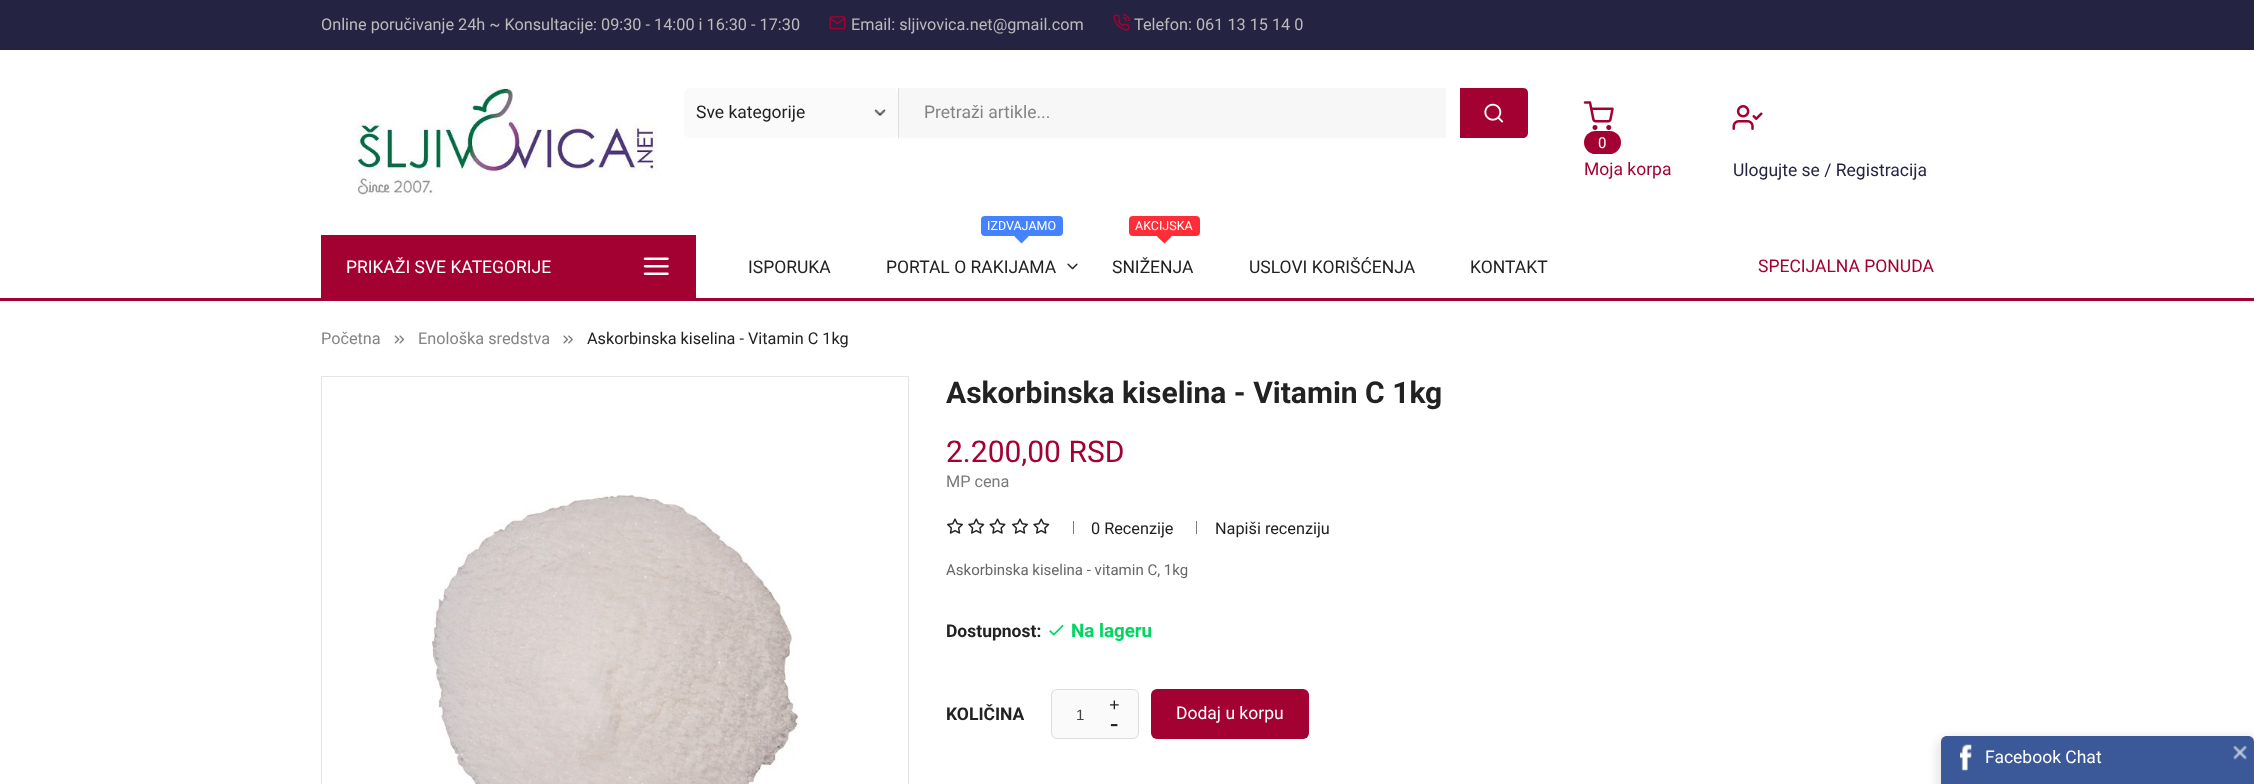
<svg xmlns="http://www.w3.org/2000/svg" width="2254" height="784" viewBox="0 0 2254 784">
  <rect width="100%" height="100%" fill="rgb(255,255,255)"/>
  <rect x="0" y="0" width="2254" height="50" fill="rgb(36,36,66)"/>
  <text x="321" y="30" font-family="Roboto" font-size="16.25" fill="rgb(187,187,187)">Online poručivanje 24h ~ Konsultacije: 09:30 - 14:00 i 16:30 - 17:30</text>
  <image x="829" y="16" width="17" height="14" href="pic1.png"/>
  <text x="851" y="30" font-family="Roboto" font-size="16.25" fill="rgb(187,187,187)">Email: sljivovica.net@gmail.com</text>
  <image x="1113" y="14" width="17" height="17" href="pic2.png"/>
  <text x="1134" y="30" font-family="Roboto" font-size="16.25" fill="rgb(187,187,187)">Telefon: 061 13 15 14 0</text>
  <image x="357" y="87" width="301" height="108" href="pic3.png"/>
  <rect x="898" y="88" width="1" height="50" fill="rgb(221,221,221)"/>
  <rect x="684" y="88" width="214" height="50" rx="6" fill="rgb(250,250,250)"/>
  <image x="874" y="109" width="12" height="7" href="pic4.png"/>
  <text x="696" y="118" font-family="Roboto" font-size="17.5" fill="rgb(34,34,34)">Sve kategorije</text>
  <rect x="899" y="88" width="547" height="50" fill="rgb(247,247,247)"/>
  <text x="924" y="118" font-family="Roboto" font-size="17.5" fill="rgb(132,132,132)">Pretraži artikle...</text>
  <path d="M1460 88H1523C1526 88 1528 90 1528 93V133C1528 136 1526 138 1523 138H1460Z" fill="rgb(164,1,51)"/>
  <image x="1484" y="103" width="20" height="20" href="pic5.png"/>
  <image x="1583" y="101" width="31" height="29" href="pic6.png"/>
  <rect x="1584" y="131" width="37" height="23" rx="11.5" fill="rgb(164,1,51)"/>
  <text x="1598" y="148" font-family="Roboto" font-size="15" fill="rgb(255,255,255)">0</text>
  <text x="1584" y="175" font-family="Roboto" font-size="17.5" fill="rgb(164,1,51)">Moja korpa</text>
  <image x="1732" y="105" width="31" height="25" href="pic7.png"/>
  <text x="1733" y="176" font-family="Roboto" font-size="17.5" fill="rgb(36,36,66)">Ulogujte se / Registracija</text>
  <rect x="0" y="298" width="2254" height="3" fill="rgb(164,1,51)"/>
  <rect x="321" y="235" width="375" height="63" fill="rgb(164,1,51)"/>
  <text x="346" y="273" font-family="Roboto" font-size="17.5" fill="rgb(255,255,255)">PRIKAŽI SVE KATEGORIJE</text>
  <image x="643" y="257" width="26" height="18" href="pic8.png"/>
  <text x="748" y="273" font-family="Roboto" font-size="17.5" fill="rgb(34,34,34)">ISPORUKA</text>
  <rect x="981" y="216" width="82" height="20" rx="4" fill="rgb(68,130,255)"/>
  <text x="987" y="230" font-family="Roboto" font-size="12.5" fill="rgb(255,255,255)">IZDVAJAMO</text>
  <path d="M1021.5 229.5L1028.5 236.5L1021.5 243.5L1014.5 236.5Z" fill="rgb(68,130,255)"/>
  <text x="886" y="273" font-family="Roboto" font-size="17.5" fill="rgb(34,34,34)">PORTAL O RAKIJAMA</text>
  <image x="1067" y="263" width="11" height="7" href="pic9.png"/>
  <rect x="1129" y="216" width="71" height="20" rx="4" fill="rgb(255,45,55)"/>
  <text x="1135" y="230" font-family="Roboto" font-size="12.5" fill="rgb(255,255,255)">AKCIJSKA</text>
  <path d="M1164.5 229.5L1171.5 236.5L1164.5 243.5L1157 236.5Z" fill="rgb(255,45,55)"/>
  <g font-family="Roboto" font-size="17.5" fill="rgb(34,34,34)">
    <text x="1112" y="273">SNIŽENJA</text>
    <text x="1249" y="273">USLOVI KORIŠĆENJA</text>
    <text x="1470" y="273">KONTAKT</text>
  </g>
  <text x="1758" y="272" font-family="Roboto" font-size="17.5" fill="rgb(164,1,51)">SPECIJALNA PONUDA</text>
  <text x="321" y="344" font-family="Roboto" font-size="16.25" fill="rgb(132,132,132)">Početna</text>
  <image x="394" y="335" width="11" height="9" href="pic10.png"/>
  <text x="418" y="344" font-family="Roboto" font-size="16.25" fill="rgb(132,132,132)">Enološka sredstva</text>
  <image x="563" y="335" width="10" height="9" href="pic11.png"/>
  <text x="587" y="344" font-family="Roboto" font-size="16.25" fill="rgb(34,34,34)">Askorbinska kiselina - Vitamin C 1kg</text>
  <rect x="321.5" y="376.5" width="587" height="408" fill="none" stroke="rgb(229,229,229)"/>
  <image x="432" y="494" width="367" height="290" href="pic12.png"/>
  <text x="946" y="403" font-family="Roboto" font-size="30" font-weight="bold" fill="rgb(34,34,34)">Askorbinska kiselina - Vitamin C 1kg</text>
  <text x="946" y="462" font-family="Roboto" font-size="30" fill="rgb(164,1,51)">2.200,00 RSD</text>
  <text x="946" y="487" font-family="Roboto" font-size="16.25" fill="rgb(122,122,122)">MP cena</text>
  <image x="947" y="518" width="16" height="16" href="pic13.png"/>
  <image x="968" y="518" width="17" height="16" href="pic14.png"/>
  <image x="989" y="518" width="17" height="16" href="pic15.png"/>
  <image x="1012" y="518" width="16" height="16" href="pic13.png"/>
  <image x="1033" y="518" width="17" height="16" href="pic14.png"/>
  <rect x="1073" y="521" width="1" height="13" fill="rgb(125,125,125)"/>
  <text x="1091" y="534" font-family="Roboto" font-size="16.25" fill="rgb(34,34,34)">0 Recenzije</text>
  <rect x="1196" y="521" width="1" height="13" fill="rgb(125,125,125)"/>
  <text x="1215" y="534" font-family="Roboto" font-size="16.25" fill="rgb(34,34,34)">Napiši recenziju</text>
  <text x="946" y="575" font-family="Roboto" font-size="15" fill="rgb(102,102,102)">Askorbinska kiselina - vitamin C, 1kg</text>
  <text x="946" y="637" font-family="Roboto" font-size="17.5" font-weight="bold" fill="rgb(34,34,34)">Dostupnost:</text>
  <image x="1049" y="624" width="15" height="12" href="pic16.png"/>
  <text x="1071" y="637" font-family="Roboto" font-size="18.75" font-weight="bold" fill="rgb(0,214,96)">Na lageru</text>
  <text x="946" y="720" font-family="Roboto" font-size="17.5" font-weight="bold" fill="rgb(34,34,34)">KOLIČINA</text>
  <rect x="1051.5" y="689.5" width="87" height="49" rx="5.5" fill="rgb(250,250,250)" stroke="rgb(221,221,221)"/>
  <text x="1076" y="720" font-family="Liberation Sans" font-size="15" fill="rgb(68,68,68)">1</text>
  <text x="1109" y="711" font-family="Liberation Serif" font-size="18.75" font-weight="bold" fill="rgb(34,34,34)">+</text>
  <text x="1110" y="731" font-family="Liberation Serif" font-size="25" font-weight="bold" fill="rgb(34,34,34)">-</text>
  <rect x="1151" y="689" width="158" height="50" rx="6" fill="rgb(164,1,51)"/>
  <text x="1176" y="719" font-family="Roboto" font-size="17.5" fill="rgb(255,255,255)">Dodaj u korpu</text>
  <rect x="1936" y="736" width="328" height="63" rx="14" fill="rgba(0,0,0,0.09)" filter="blur(4px)"/>
  <path d="M1947 736H2248C2251.5 736 2254 738.5 2254 742V784H1941V742C1941 738.5 1943.5 736 1947 736Z" fill="rgb(59,89,152)"/>
  <image x="1960" y="744" width="12" height="27" href="pic17.png"/>
  <text x="1985" y="763" font-family="Roboto" font-size="17.5" fill="rgb(255,255,255)">Facebook Chat</text>
  <image x="2233" y="745" width="14" height="15" href="pic18.png"/>
</svg>
